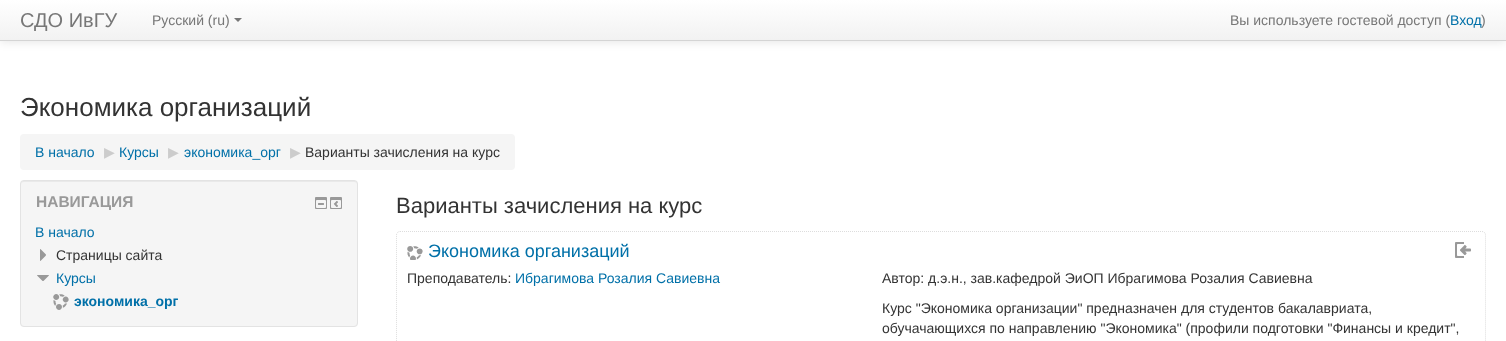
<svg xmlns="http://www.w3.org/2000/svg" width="1506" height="341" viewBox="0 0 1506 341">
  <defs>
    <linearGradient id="g1" gradientUnits="userSpaceOnUse" x1="753" y1="0" x2="753" y2="40"><stop offset="0" stop-color="rgb(255,255,255)"/><stop offset="1" stop-color="rgb(242,242,242)"/></linearGradient>
  </defs>
  <rect width="100%" height="100%" fill="rgb(255,255,255)"/>
  <rect x="0" y="1" width="1506" height="41" fill="rgba(0,0,0,0.1)" filter="blur(5px)"/>
  <rect x="0" y="0" width="1506" height="40" fill="url(#g1)"/>
  <rect x="0" y="40" width="1506" height="1" fill="rgb(212,212,212)"/>
  <text x="20" y="27" font-family="Liberation Sans" font-size="20" fill="rgb(119,119,119)">СДО ИвГУ</text>
  <text x="152" y="25" font-family="Liberation Sans" font-size="14" fill="rgb(119,119,119)">Русский (ru)</text>
  <path d="M234 18H242L238 22Z" fill="rgb(119,119,119)"/>
  <text x="1230" y="25" font-family="Liberation Sans" font-size="14" fill="rgb(119,119,119)">Вы используете гостевой доступ (</text>
  <text x="1450" y="25" font-family="Liberation Sans" font-size="14" fill="rgb(0,112,168)">Вход</text>
  <text x="1481" y="25" font-family="Liberation Sans" font-size="14" fill="rgb(119,119,119)">)</text>
  <text x="20" y="116" font-family="Liberation Sans" font-size="26" fill="rgb(51,51,51)">Экономика организаций</text>
  <rect x="20" y="134" width="495" height="36" rx="4" fill="rgb(245,245,245)"/>
  <text x="35" y="157" font-family="Liberation Sans" font-size="14" fill="rgb(0,112,168)">В начало</text>
  <text x="104" y="157" font-family="DejaVu Sans" font-size="14" fill="rgb(204,204,204)">▶︎</text>
  <text x="119" y="157" font-family="Liberation Sans" font-size="14" fill="rgb(0,112,168)">Курсы</text>
  <text x="168" y="157" font-family="DejaVu Sans" font-size="14" fill="rgb(204,204,204)">▶︎</text>
  <text x="184" y="157" font-family="Liberation Sans" font-size="14" fill="rgb(0,112,168)">экономика_орг</text>
  <text x="290" y="157" font-family="DejaVu Sans" font-size="14" fill="rgb(204,204,204)">▶︎</text>
  <text x="305" y="157" font-family="Liberation Sans" font-size="14" fill="rgb(51,51,51)">Варианты зачисления на курс</text>
  <rect x="20" y="180" width="338" height="147" rx="4" fill="rgb(245,245,245)"/>
  <path d="M24 182H354C356 182 357 183 357 185C357 183 356 181 354 181H24C22 181 21 183 21 185C21 183 22 182 24 182Z" fill="rgb(233,233,233)"/>
  <rect x="20.5" y="180.5" width="337" height="146" rx="3.5" fill="none" stroke="rgb(227,227,227)"/>
  <text x="36" y="207" font-family="Liberation Sans" font-size="15.5" font-weight="bold" fill="rgb(153,153,153)">НАВИГАЦИЯ</text>
  <image x="315" y="197" width="12" height="12" href="pic1.png"/>
  <image x="330" y="197" width="12" height="12" href="pic2.png"/>
  <text x="35" y="237" font-family="Liberation Sans" font-size="14" fill="rgb(0,112,168)">В начало</text>
  <image x="40" y="249" width="6" height="12" href="pic3.png"/>
  <text x="56" y="260" font-family="Liberation Sans" font-size="14" fill="rgb(51,51,51)">Страницы сайта</text>
  <image x="37" y="275" width="12" height="6" href="pic4.png"/>
  <text x="56" y="283" font-family="Liberation Sans" font-size="14" fill="rgb(0,112,168)">Курсы</text>
  <image x="53" y="294" width="16" height="16" href="pic5.png"/>
  <text x="74" y="306" font-family="Liberation Sans" font-size="14" font-weight="bold" fill="rgb(0,112,168)">экономика_орг</text>
  <text x="396" y="213" font-family="Liberation Sans" font-size="22" fill="rgb(51,51,51)">Варианты зачисления на курс</text>
  <path d="M400 231.5H1482C1484 231.5 1485.5 233 1485.5 235V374C1485.5 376 1484 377.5 1482 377.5H400C398 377.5 396.5 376 396.5 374V235C396.5 233 398 231.5 400 231.5Z" fill="none" stroke="rgb(221,221,221)" stroke-dasharray="1 1"/>
  <image x="407" y="246" width="16" height="14" href="pic6.png"/>
  <text x="428" y="257" font-family="Liberation Sans" font-size="18" fill="rgb(0,112,168)">Экономика организаций</text>
  <image x="1455" y="242" width="16" height="16" href="pic7.png"/>
  <text x="407" y="283" font-family="Liberation Sans" font-size="14" fill="rgb(51,51,51)">Преподаватель:</text>
  <text x="515" y="283" font-family="Liberation Sans" font-size="14" fill="rgb(0,112,168)">Ибрагимова Розалия Савиевна</text>
  <g font-family="Liberation Sans" font-size="14" fill="rgb(51,51,51)">
    <text x="882" y="283">Автор: д.э.н., зав.кафедрой ЭиОП Ибрагимова Розалия Савиевна</text>
    <text>
      <tspan x="882" y="313">Курс "Экономика организации" предназначен для студентов бакалавриата,</tspan>
      <tspan x="882" y="333">обучачающихся по направлению "Экономика" (профили подготовки "Финансы и кредит",</tspan>
    </text>
  </g>
</svg>
